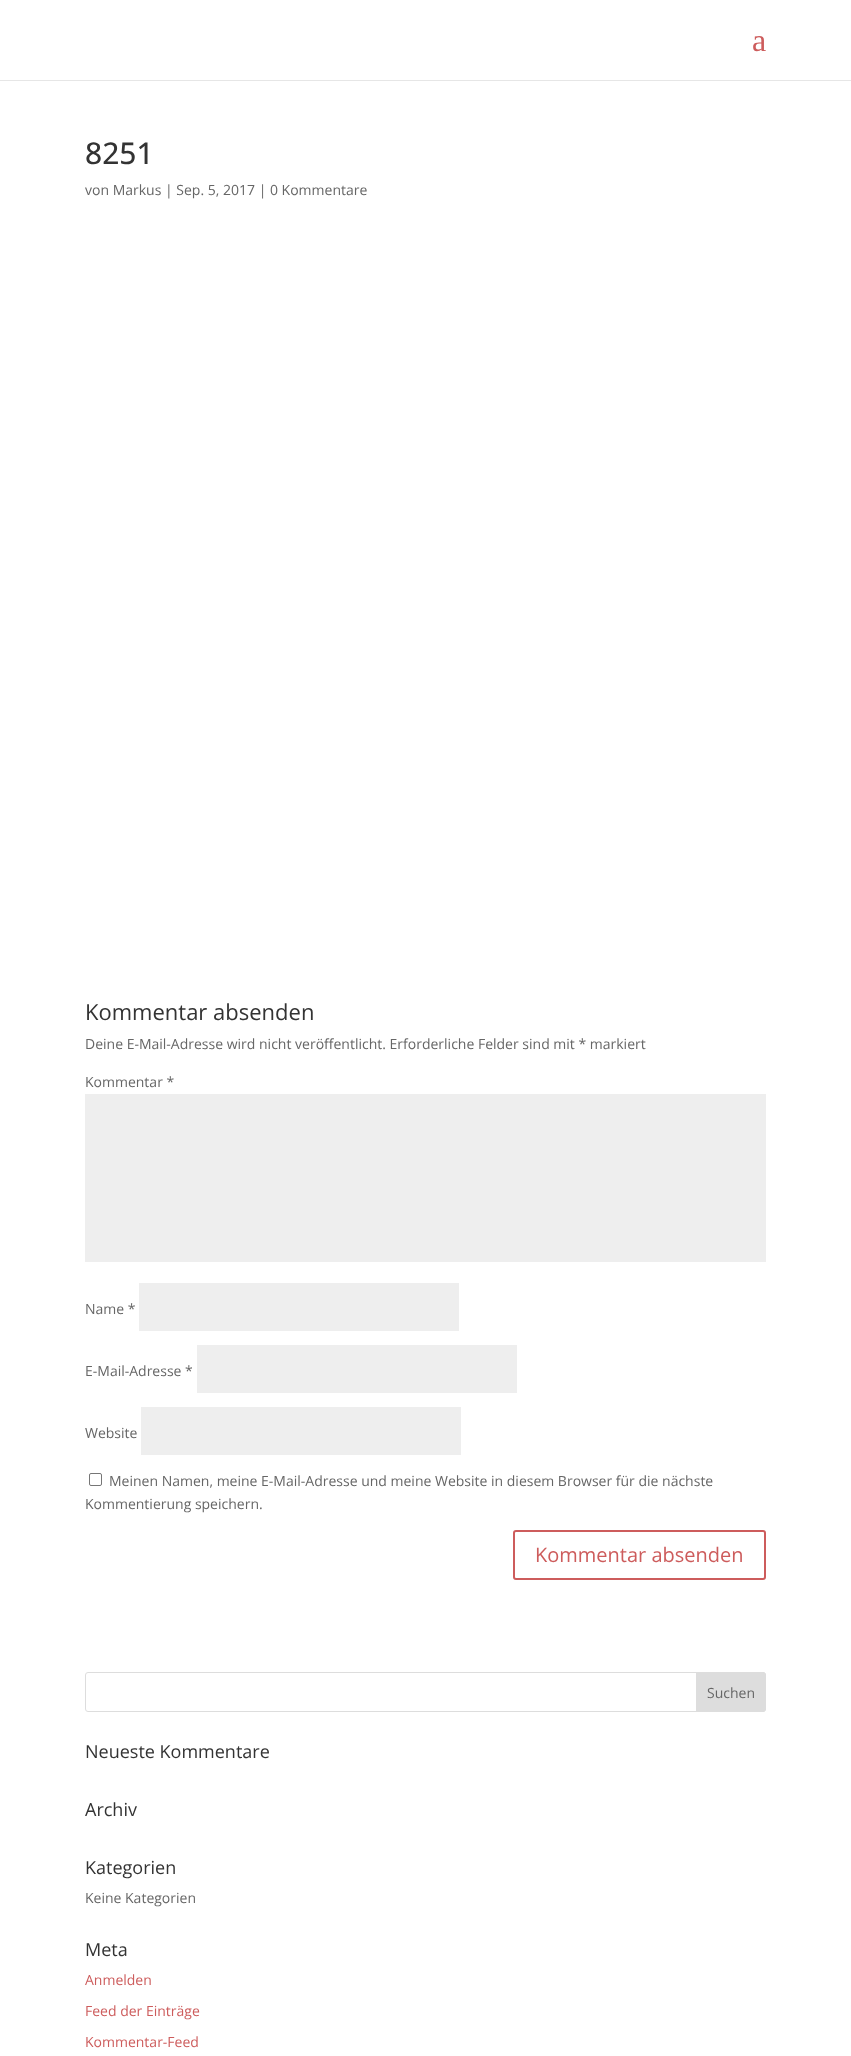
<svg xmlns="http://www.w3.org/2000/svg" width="851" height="2056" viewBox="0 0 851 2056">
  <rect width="100%" height="100%" fill="rgb(255,255,255)"/>
  <rect x="0" y="80" width="851" height="1" fill="rgb(230,230,230)"/>
  <text x="752" y="51" font-family="Liberation Serif" font-size="32" fill="rgb(205,92,92)">a</text>
  <text x="85" y="164" font-family="Open Sans" font-size="30" font-weight="500" fill="rgb(51,51,51)">8251</text>
  <text x="85" y="195" font-family="Open Sans" font-size="14" fill="rgb(102,102,102)">von Markus | Sep. 5, 2017 | 0 Kommentare</text>
  <text x="85" y="1020" font-family="Open Sans" font-size="22" fill="rgb(51,51,51)">Kommentar absenden</text>
  <g font-family="Open Sans" font-size="14" fill="rgb(102,102,102)">
    <text x="85" y="1049">Deine E-Mail-Adresse wird nicht veröffentlicht. Erforderliche Felder sind mit * markiert</text>
    <text x="85" y="1087">Kommentar *</text>
  </g>
  <rect x="85" y="1094" width="681" height="168" fill="rgb(238,238,238)"/>
  <text x="85" y="1314" font-family="Open Sans" font-size="14" fill="rgb(102,102,102)">Name *</text>
  <rect x="139" y="1283" width="320" height="48" fill="rgb(238,238,238)"/>
  <text x="85" y="1376" font-family="Open Sans" font-size="14" fill="rgb(102,102,102)">E-Mail-Adresse *</text>
  <rect x="197" y="1345" width="320" height="48" fill="rgb(238,238,238)"/>
  <text x="85" y="1438" font-family="Open Sans" font-size="14" fill="rgb(102,102,102)">Website</text>
  <rect x="141" y="1407" width="320" height="48" fill="rgb(238,238,238)"/>
  <rect x="89.5" y="1473.5" width="12" height="12" rx="1.5" fill="none" stroke="rgb(118,118,118)"/>
  <g font-family="Open Sans" font-size="14" fill="rgb(102,102,102)">
    <text x="109" y="1486">Meinen Namen, meine E-Mail-Adresse und meine Website in diesem Browser für die nächste</text>
    <text x="85" y="1509">Kommentierung speichern.</text>
  </g>
  <rect x="514" y="1531" width="251" height="48" rx="2" fill="none" stroke="rgb(205,92,92)" stroke-width="2"/>
  <text x="535" y="1562" font-family="Open Sans" font-size="20" fill="rgb(205,92,92)">Kommentar absenden</text>
  <rect x="85.5" y="1672.5" width="680" height="39" rx="2.5" fill="none" stroke="rgb(221,221,221)"/>
  <path d="M696.5 1672.5H763C764.5 1672.5 765.5 1673.5 765.5 1675V1709C765.5 1710.5 764.5 1711.5 763 1711.5H696.5Z" fill="rgb(221,221,221)" stroke="rgb(221,221,221)"/>
  <text x="707" y="1698" font-family="Open Sans" font-size="14" fill="rgb(102,102,102)">Suchen</text>
  <g font-family="Open Sans" font-size="18" fill="rgb(51,51,51)">
    <text x="85" y="1758">Neueste Kommentare</text>
    <text x="85" y="1816">Archiv</text>
    <text x="85" y="1874">Kategorien</text>
  </g>
  <text x="85" y="1903" font-family="Open Sans" font-size="14" fill="rgb(102,102,102)">Keine Kategorien</text>
  <text x="85" y="1956" font-family="Open Sans" font-size="18" fill="rgb(51,51,51)">Meta</text>
  <g font-family="Open Sans" font-size="14" fill="rgb(205,92,92)">
    <text x="85" y="1985">Anmelden</text>
    <text x="85" y="2016">Feed der Einträge</text>
    <text x="85" y="2047">Kommentar-Feed</text>
  </g>
</svg>
